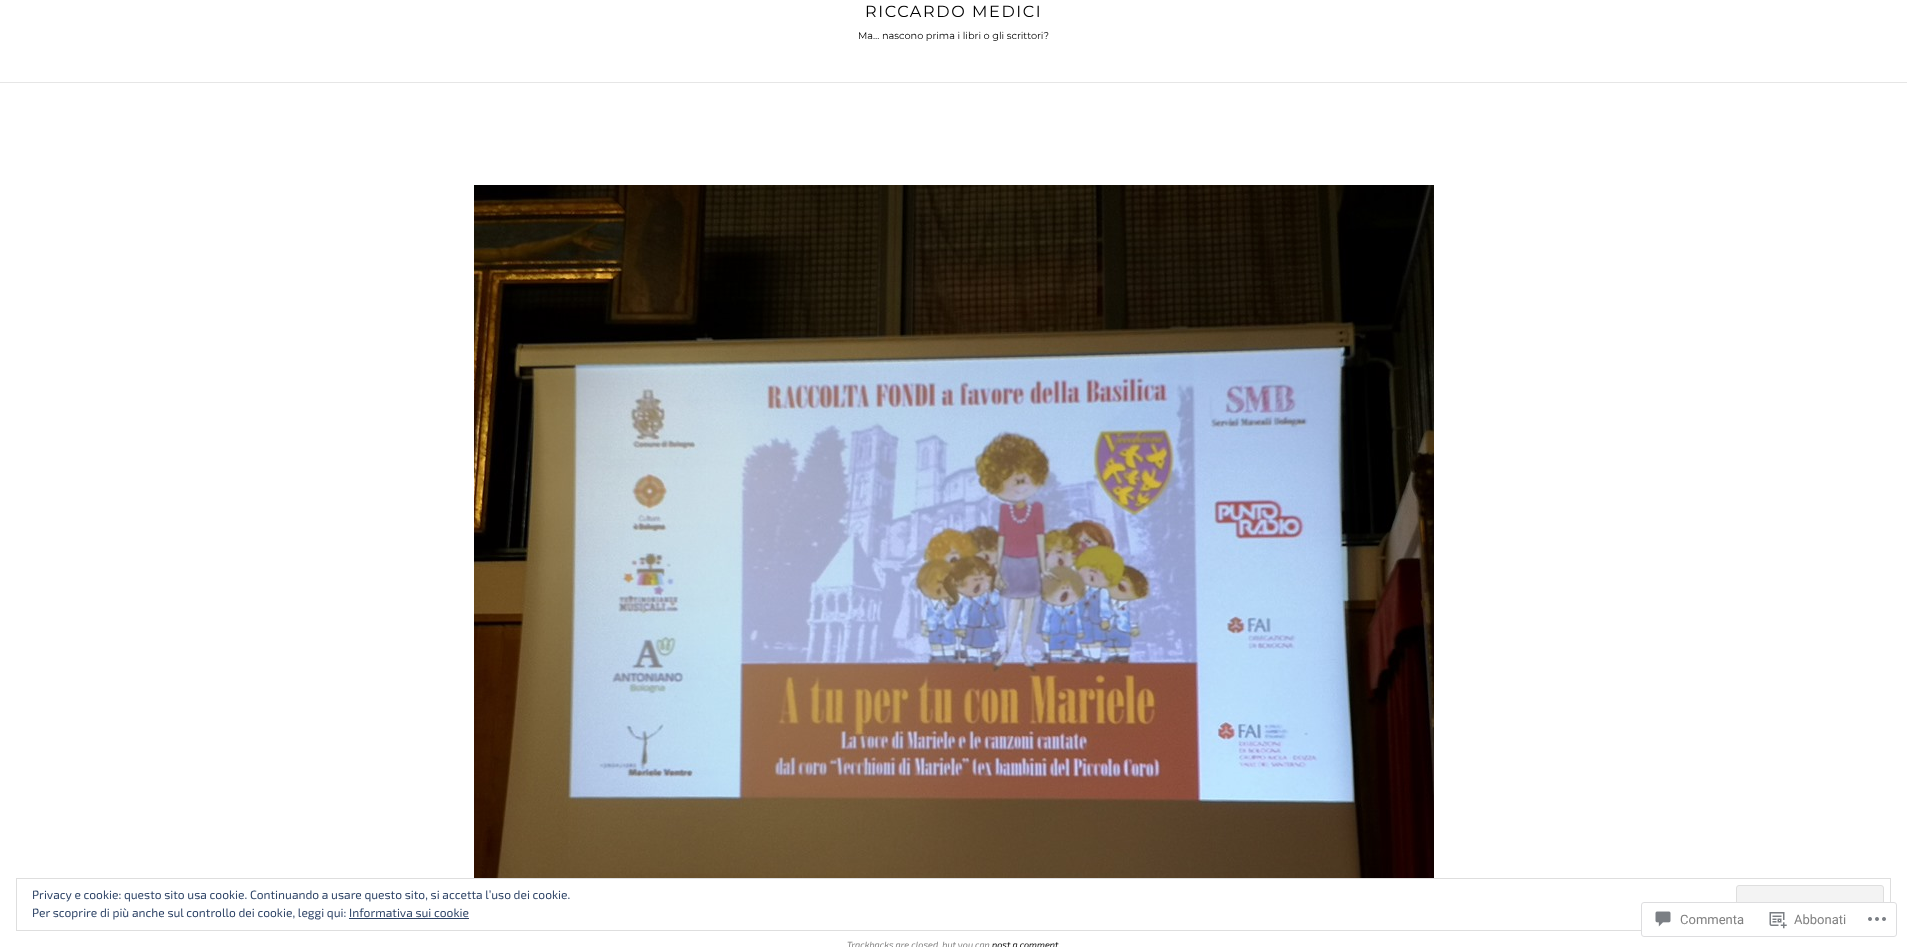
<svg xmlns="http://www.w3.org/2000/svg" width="1907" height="947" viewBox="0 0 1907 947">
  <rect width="100%" height="100%" fill="rgb(255,255,255)"/>
  <rect x="16.5" y="878.5" width="1874" height="52" fill="none" stroke="rgb(222,222,222)"/>
  <text x="32" y="899" font-family="'Exo 2'" font-size="12" fill="rgb(46,68,103)">Privacy e cookie: questo sito usa cookie. Continuando a usare questo sito, si accetta l’uso dei cookie.</text>
  <rect x="1736.5" y="885.5" width="147" height="38" rx="2.5" fill="rgb(243,243,243)" stroke="rgb(222,222,222)"/>
  <text x="32" y="917" font-family="'Exo 2'" font-size="12" fill="rgb(46,68,103)">Per scoprire di più anche sul controllo dei cookie, leggi qui: Informativa sui cookie</text>
  <rect x="349" y="918" width="120" height="1" fill="rgb(46,68,103)"/>
  <rect x="0" y="82" width="1907" height="1" fill="rgb(230,230,230)"/>
  <text x="865" y="17" font-family="Montserrat" font-size="16.1" font-weight="100" letter-spacing="1.6" fill="rgb(0,0,0)">RICCARDO MEDICI</text>
  <text x="858" y="39" font-family="Montserrat" font-size="9.75" font-weight="100" fill="rgb(0,0,0)">Ma… nascono prima i libri o gli scrittori?</text>
  <image x="474" y="185" width="960" height="693" href="pic1.png"/>
  <text x="847" y="948" font-family="'Exo 2'" font-size="9.1" font-style="italic" fill="rgb(128,128,128)">Trackbacks are closed, but you can</text>
  <text x="992" y="948" font-family="'Exo 2'" font-size="9.1" font-style="italic" fill="rgb(0,0,0)">post a comment</text>
  <rect x="1641" y="902" width="256" height="35" rx="3" fill="rgba(255,255,255,0.98)"/>
  <rect x="1641.5" y="902.5" width="255" height="34" rx="2.5" fill="none" stroke="rgba(220,220,222,0.98)"/>
  <image x="1655" y="911" width="16" height="16" href="pic2.png"/>
  <text x="1680" y="924" font-family="Roboto" font-size="13" fill="rgb(128,128,128)">Commenta</text>
  <image x="1769" y="912" width="18" height="17" href="pic3.png"/>
  <text x="1794" y="924" font-family="Roboto" font-size="13" fill="rgb(128,128,128)">Abbonati</text>
  <image x="1868" y="917" width="18" height="4" href="pic4.png"/>
</svg>
